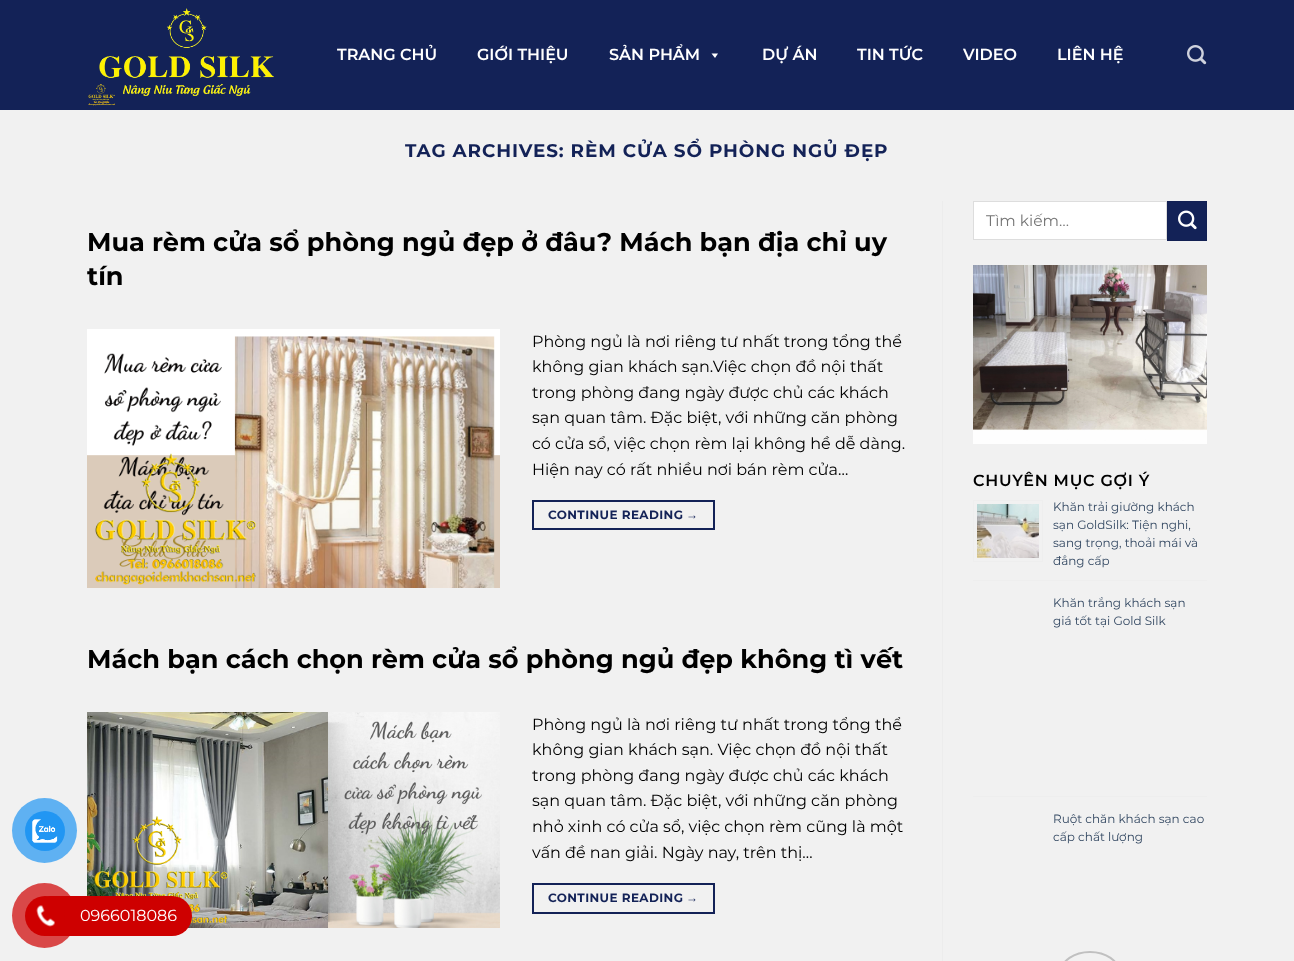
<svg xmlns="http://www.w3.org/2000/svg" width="1294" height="961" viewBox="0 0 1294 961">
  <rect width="100%" height="100%" fill="rgb(241,241,241)"/>
  <rect x="0" y="0" width="1294" height="110" fill="rgb(19,34,87)"/>
  <image x="88" y="8" width="186" height="98" href="pic1.png"/>
  <g font-family="Montserrat" font-size="16" font-weight="600" fill="rgb(255,255,255)">
    <text x="337" y="60">TRANG CHỦ</text>
    <text x="477" y="60">GIỚI THIỆU</text>
    <text x="609" y="60">SẢN PHẨM</text>
  </g>
  <path d="M718 53.5L715 58L711.5 53.5Z" fill="rgb(255,255,255)"/>
  <g font-family="Montserrat" font-size="16" font-weight="600" fill="rgb(255,255,255)">
    <text x="762" y="60">DỰ ÁN</text>
    <text x="857" y="60">TIN TỨC</text>
    <text x="963" y="60">VIDEO</text>
    <text x="1057" y="60">LIÊN HỆ</text>
  </g>
  <image x="1187" y="45" width="20" height="20" href="pic2.png"/>
  <text x="405" y="157" font-family="Montserrat" font-size="18.4" font-weight="bold" letter-spacing="0.9" fill="rgb(19,34,87)">TAG ARCHIVES: RÈM CỬA SỔ PHÒNG NGỦ ĐẸP</text>
  <g font-family="Montserrat" font-size="25.6" font-weight="bold" fill="rgb(0,0,0)">
    <text>
      <tspan x="87" y="251">Mua rèm cửa sổ phòng ngủ đẹp ở đâu? Mách bạn địa chỉ uy</tspan>
      <tspan x="87" y="285">tín</tspan>
    </text>
  </g>
  <image x="87" y="329" width="413" height="259" href="pic3.png"/>
  <g font-family="Montserrat" font-size="16" fill="rgb(0,0,0)">
    <text>
      <tspan x="532" y="347">Phòng ngủ là nơi riêng tư nhất trong tổng thể</tspan>
      <tspan x="532" y="372">không gian khách sạn.Việc chọn đồ nội thất</tspan>
      <tspan x="532" y="398">trong phòng đang ngày được chủ các khách</tspan>
      <tspan x="532" y="423">sạn quan tâm. Đặc biệt, với những căn phòng</tspan>
      <tspan x="532" y="449">có cửa sổ, việc chọn rèm lại không hề dễ dàng.</tspan>
      <tspan x="532" y="475">Hiện nay có rất nhiều nơi bán rèm cửa…</tspan>
    </text>
  </g>
  <rect x="533" y="501" width="181" height="28" fill="none" stroke="rgb(19,34,87)" stroke-width="2"/>
  <text x="548" y="519" font-family="Montserrat" font-size="12" font-weight="bold" letter-spacing="0.4" fill="rgb(19,34,87)">CONTINUE READING</text>
  <text x="686" y="519" font-family="Liberation Sans" font-size="12" font-weight="bold" letter-spacing="0.4" fill="rgb(19,34,87)">→</text>
  <text x="87" y="668" font-family="Montserrat" font-size="25.6" font-weight="bold" fill="rgb(0,0,0)">Mách bạn cách chọn rèm cửa sổ phòng ngủ đẹp không tì vết</text>
  <image x="87" y="712" width="413" height="216" href="pic4.png"/>
  <g font-family="Montserrat" font-size="16" fill="rgb(0,0,0)">
    <text>
      <tspan x="532" y="730">Phòng ngủ là nơi riêng tư nhất trong tổng thể</tspan>
      <tspan x="532" y="755">không gian khách sạn. Việc chọn đồ nội thất</tspan>
      <tspan x="532" y="781">trong phòng đang ngày được chủ các khách</tspan>
      <tspan x="532" y="806">sạn quan tâm. Đặc biệt, với những căn phòng</tspan>
      <tspan x="532" y="832">nhỏ xinh có cửa sổ, việc chọn rèm cũng là một</tspan>
      <tspan x="532" y="858">vấn đề nan giải. Ngày nay, trên thị…</tspan>
    </text>
  </g>
  <rect x="533" y="884" width="181" height="29" fill="none" stroke="rgb(19,34,87)" stroke-width="2"/>
  <text x="548" y="902" font-family="Montserrat" font-size="12" font-weight="bold" letter-spacing="0.4" fill="rgb(19,34,87)">CONTINUE READING</text>
  <text x="686" y="902" font-family="Liberation Sans" font-size="12" font-weight="bold" letter-spacing="0.4" fill="rgb(19,34,87)">→</text>
  <rect x="942" y="201" width="1" height="760" fill="rgb(236,236,236)"/>
  <rect x="973.5" y="201.5" width="193" height="38" fill="rgb(255,255,255)" stroke="rgb(221,221,221)"/>
  <text x="986" y="226" font-family="Montserrat" font-size="15.5" fill="rgb(117,117,117)">Tìm kiếm…</text>
  <rect x="1167.5" y="201.5" width="39" height="39" fill="rgb(19,34,87)" stroke="rgb(18,32,83)"/>
  <image x="1178" y="210" width="19" height="20" href="pic5.png"/>
  <image x="973" y="265" width="234" height="179" href="pic6.png"/>
  <rect x="1061" y="952" width="58" height="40" rx="29" fill="none" stroke="rgb(192,192,192)" stroke-width="2"/>
  <text x="973" y="486" font-family="Montserrat" font-size="16" font-weight="600" letter-spacing="0.75" fill="rgb(0,0,0)">CHUYÊN MỤC GỢI Ý</text>
  <rect x="973" y="580" width="234" height="1" fill="rgb(238,238,238)"/>
  <rect x="973.5" y="500.5" width="69" height="61" fill="none" stroke="rgb(238,238,238)"/>
  <image x="977" y="504" width="62" height="54" href="pic7.png"/>
  <g font-family="Montserrat" font-size="12" fill="rgb(51,72,98)">
    <text>
      <tspan x="1053" y="511">Khăn trải giường khách</tspan>
      <tspan x="1053" y="529">sạn GoldSilk: Tiện nghi,</tspan>
      <tspan x="1053" y="547">sang trọng, thoải mái và</tspan>
      <tspan x="1053" y="565">đẳng cấp</tspan>
    </text>
  </g>
  <rect x="973" y="796" width="234" height="1" fill="rgb(238,238,238)"/>
  <g font-family="Montserrat" font-size="12" fill="rgb(51,72,98)">
    <text>
      <tspan x="1053" y="607">Khăn trắng khách sạn</tspan>
      <tspan x="1053" y="625">giá tốt tại Gold Silk</tspan>
    </text>
    <text>
      <tspan x="1053" y="823">Ruột chăn khách sạn cao</tspan>
      <tspan x="1053" y="841">cấp chất lượng</tspan>
    </text>
  </g>
  <circle cx="44.5" cy="830.5" r="32.5" fill="rgb(95,177,242)"/>
  <circle cx="45" cy="831" r="20" fill="rgb(33,150,243)"/>
  <image x="32" y="819" width="26" height="24" href="pic8.png"/>
  <rect x="30" y="896" width="162" height="40" rx="20" fill="rgb(206,0,0)"/>
  <circle cx="44.5" cy="915.5" r="32.5" fill="rgba(206,0,0,0.7)"/>
  <circle cx="45" cy="916" r="20" fill="rgb(206,0,0)"/>
  <image x="36" y="905" width="19" height="22" href="pic9.png"/>
  <text x="80" y="921" font-family="Montserrat" font-size="16" fill="rgb(255,255,255)">0966018086</text>
</svg>
